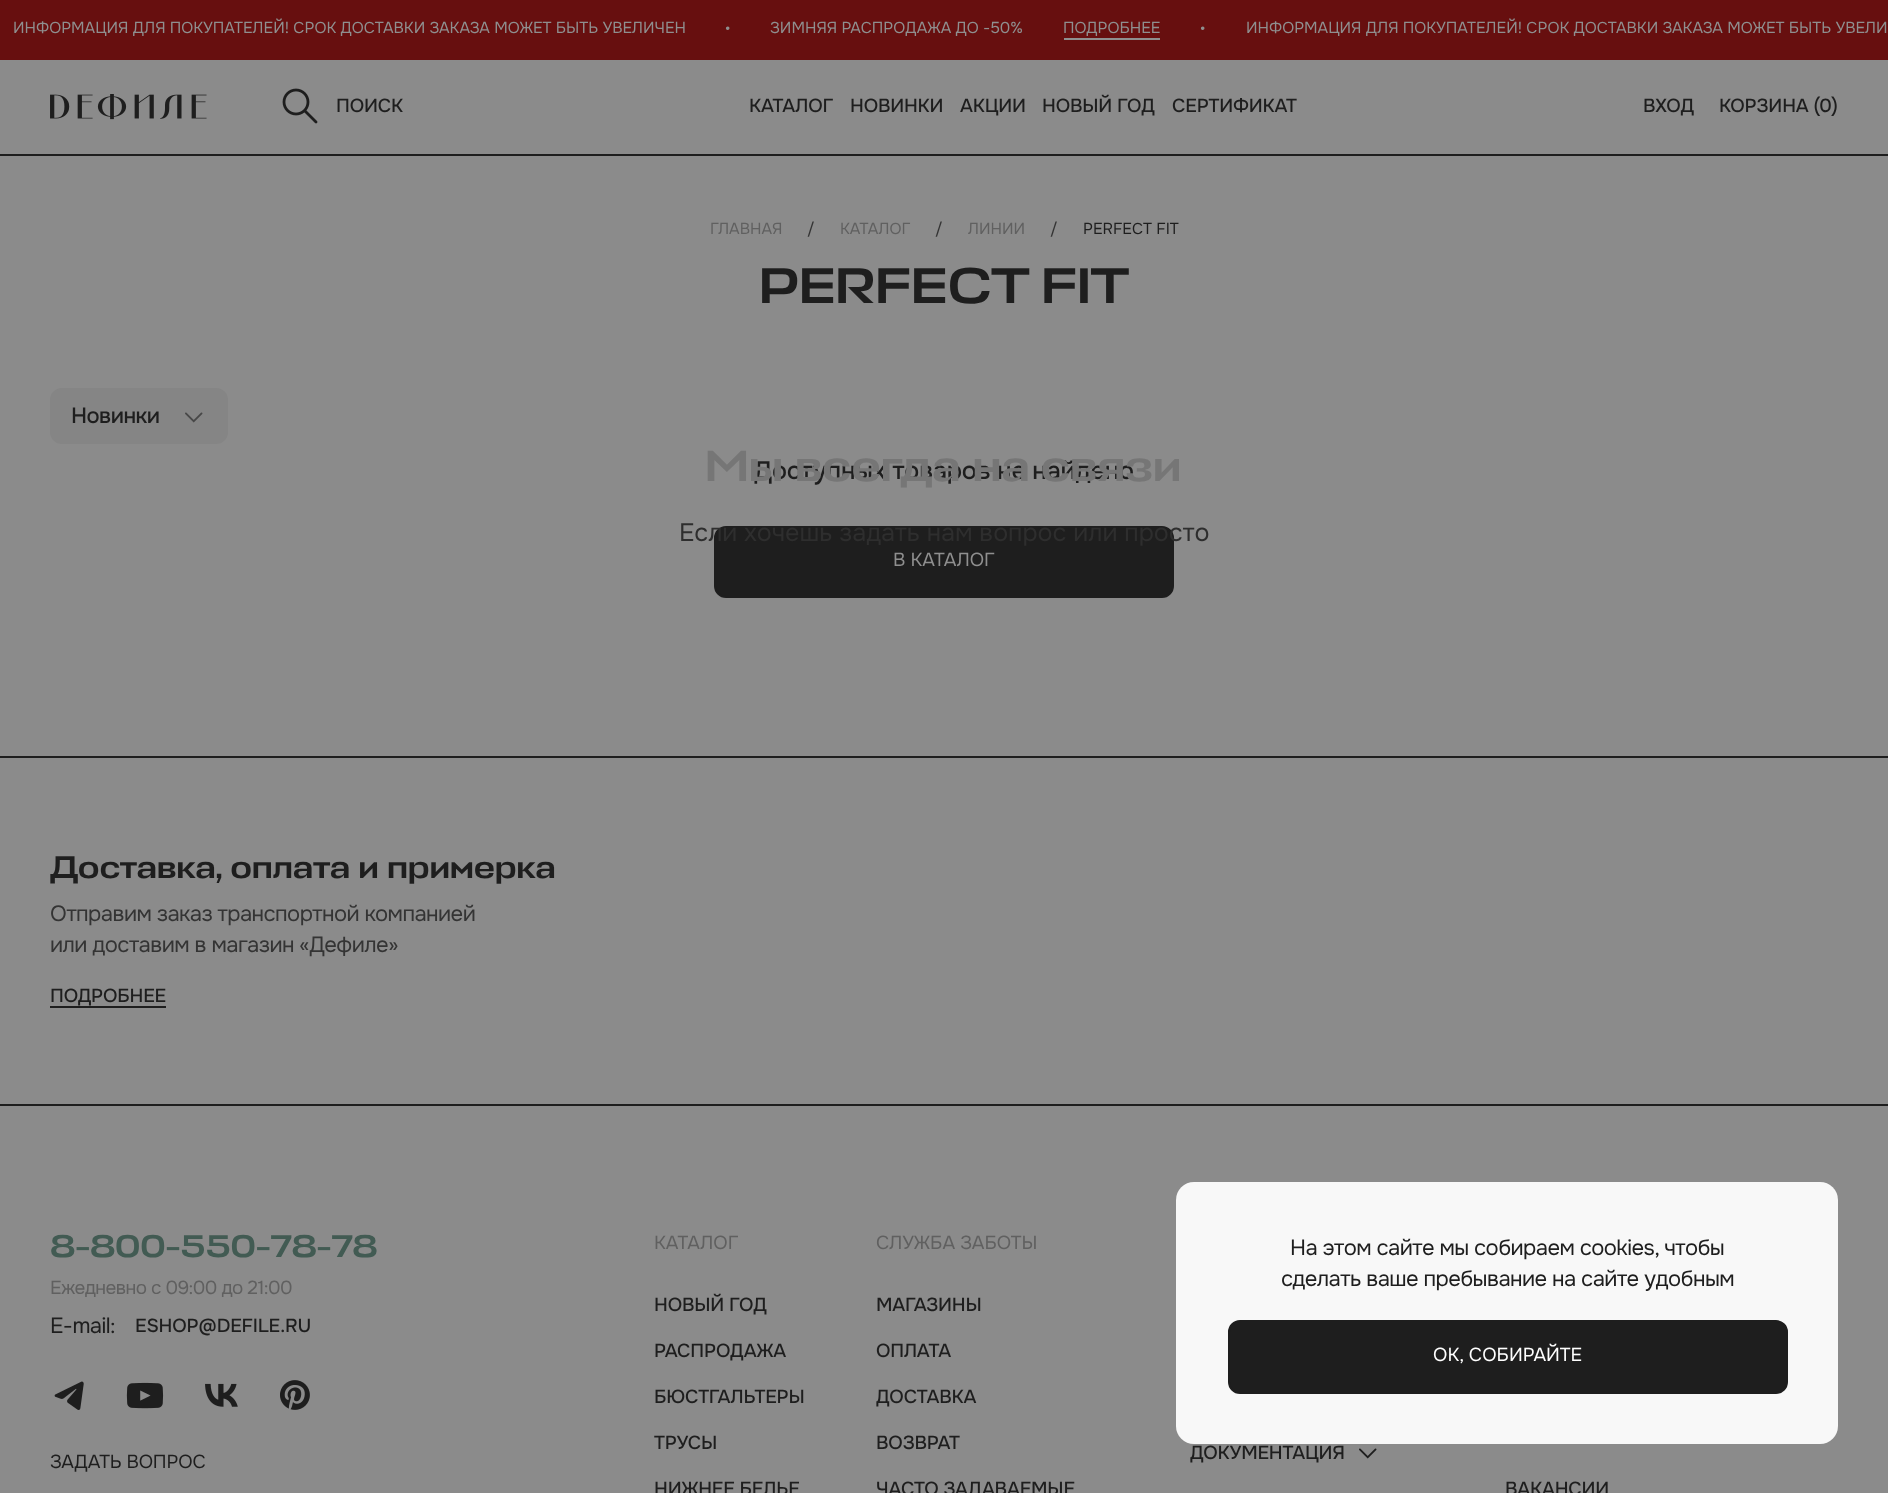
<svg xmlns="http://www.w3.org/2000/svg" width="1888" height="1493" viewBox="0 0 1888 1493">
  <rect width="100%" height="100%" fill="rgb(139,139,139)"/>
  <rect x="0" y="154" width="1888" height="2" fill="rgb(30,30,30)"/>
  <rect x="0" y="0" width="1888" height="60" fill="rgb(103,15,15)"/>
  <g font-family="Onest" font-size="15.75" fill="rgb(143,143,143)">
    <text x="13" y="33">ИНФОРМАЦИЯ ДЛЯ ПОКУПАТЕЛЕЙ! СРОК ДОСТАВКИ ЗАКАЗА МОЖЕТ БЫТЬ УВЕЛИЧЕН</text>
    <text x="725" y="34">•</text>
    <text x="770" y="33">ЗИМНЯЯ РАСПРОДАЖА ДО -50%</text>
  </g>
  <rect x="1064" y="38" width="96" height="2" fill="rgb(143,143,143)"/>
  <g font-family="Onest" font-size="15.75" fill="rgb(143,143,143)">
    <text x="1063" y="33">ПОДРОБНЕЕ</text>
    <text x="1200" y="34">•</text>
    <text x="1246" y="33">ИНФОРМАЦИЯ ДЛЯ ПОКУПАТЕЛЕЙ! СРОК ДОСТАВКИ ЗАКАЗА МОЖЕТ БЫТЬ УВЕЛИ</text>
  </g>
  <image x="50" y="94" width="157" height="26" href="pic1.png"/>
  <image x="282" y="88" width="36" height="36" href="pic2.png"/>
  <g font-family="Onest" font-size="18.9" font-weight="500" letter-spacing="-0.2" fill="rgb(30,30,30)">
    <text x="336" y="112">ПОИСК</text>
    <text x="749" y="112">КАТАЛОГ</text>
    <text x="850" y="112">НОВИНКИ</text>
    <text x="960" y="112">АКЦИИ</text>
    <text x="1042" y="112">НОВЫЙ ГОД</text>
    <text x="1172" y="112">СЕРТИФИКАТ</text>
    <text x="1643" y="112">ВХОД</text>
    <text x="1719" y="112">КОРЗИНА (0)</text>
  </g>
  <text x="710" y="234" font-family="Onest" font-size="15.75" fill="rgb(96,96,96)">ГЛАВНАЯ</text>
  <text x="807" y="234" font-family="Onest" font-size="15.75" fill="rgb(52,52,52)">/</text>
  <text x="840" y="234" font-family="Onest" font-size="15.75" fill="rgb(96,96,96)">КАТАЛОГ</text>
  <text x="935" y="234" font-family="Onest" font-size="15.75" fill="rgb(52,52,52)">/</text>
  <text x="968" y="234" font-family="Onest" font-size="15.75" fill="rgb(96,96,96)">ЛИНИИ</text>
  <text x="1050" y="234" font-family="Onest" font-size="15.75" fill="rgb(52,52,52)">/</text>
  <text x="1083" y="234" font-family="Onest" font-size="15.75" fill="rgb(30,30,30)">PERFECT FIT</text>
  <text x="759" y="303" font-family="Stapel" font-size="50.25" font-weight="500" letter-spacing="-0.2" fill="rgb(30,30,30)">PERFECT FIT</text>
  <rect x="50" y="388" width="178" height="56" rx="12" fill="rgb(133,133,133)"/>
  <text x="71" y="423" font-family="Onest" font-size="22" font-weight="500" letter-spacing="-0.55" fill="rgb(30,30,30)">Новинки</text>
  <image x="185" y="412" width="18" height="11" href="pic3.png"/>
  <text x="754" y="479" font-family="Onest" font-size="25.2" font-weight="500" letter-spacing="-0.2" fill="rgb(30,30,30)">Доступных товаров не найдено</text>
  <rect x="715" y="527" width="458" height="70" rx="11" fill="rgb(30,30,30)" stroke="rgb(30,30,30)" stroke-width="2"/>
  <text x="893" y="566" font-family="Onest" font-size="18.9" fill="rgb(143,143,143)">В КАТАЛОГ</text>
  <rect x="0" y="1104" width="1888" height="2" fill="rgb(30,30,30)"/>
  <text x="705" y="481" font-family="Stapel" font-size="44" font-weight="500" letter-spacing="-0.2" fill="rgb(118,118,118)">Мы всегда на связи</text>
  <text x="679" y="541" font-family="Onest" font-size="25.2" fill="rgb(46,46,46)">Если хочешь задать нам вопрос или просто</text>
  <image x="54" y="1381" width="30" height="29" href="pic4.png"/>
  <image x="126" y="1382" width="38" height="27" href="pic5.png"/>
  <image x="205" y="1383" width="33" height="24" href="pic6.png"/>
  <image x="280" y="1380" width="30" height="30" href="pic7.png"/>
  <text x="50" y="1468" font-family="Onest" font-size="18.9" letter-spacing="-0.2" fill="rgb(30,30,30)">ЗАДАТЬ ВОПРОС</text>
  <text x="50" y="1257" font-family="Stapel" font-size="31.5" font-weight="500" letter-spacing="-0.2" fill="rgb(66,91,83)">8-800-550-78-78</text>
  <text x="50" y="1294" font-family="Onest" font-size="18.9" letter-spacing="-0.55" fill="rgb(96,96,96)">Ежедневно с 09:00 до 21:00</text>
  <text x="50" y="1333" font-family="Onest" font-size="22" letter-spacing="-0.55" fill="rgb(30,30,30)">E-mail:</text>
  <text x="135" y="1332" font-family="Onest" font-size="18.9" font-weight="500" letter-spacing="-0.2" fill="rgb(30,30,30)">ESHOP@DEFILE.RU</text>
  <text x="654" y="1249" font-family="Onest" font-size="18.9" fill="rgb(96,96,96)">КАТАЛОГ</text>
  <g font-family="Onest" font-size="18.9" font-weight="500" letter-spacing="-0.2" fill="rgb(30,30,30)">
    <text x="654" y="1311">НОВЫЙ ГОД</text>
    <text x="654" y="1357">РАСПРОДАЖА</text>
    <text x="654" y="1403">БЮСТГАЛЬТЕРЫ</text>
    <text x="654" y="1449">ТРУСЫ</text>
    <text x="654" y="1495">НИЖНЕЕ БЕЛЬЕ</text>
  </g>
  <text x="876" y="1249" font-family="Onest" font-size="18.9" fill="rgb(96,96,96)">СЛУЖБА ЗАБОТЫ</text>
  <g font-family="Onest" font-size="18.9" font-weight="500" letter-spacing="-0.2" fill="rgb(30,30,30)">
    <text x="876" y="1311">МАГАЗИНЫ</text>
    <text x="876" y="1357">ОПЛАТА</text>
    <text x="876" y="1403">ДОСТАВКА</text>
    <text x="876" y="1449">ВОЗВРАТ</text>
    <text x="876" y="1495">ЧАСТО ЗАДАВАЕМЫЕ</text>
    <text x="1190" y="1459">ДОКУМЕНТАЦИЯ</text>
  </g>
  <image x="1359" y="1448" width="18" height="11" href="pic8.png"/>
  <text x="1505" y="1495" font-family="Onest" font-size="18.9" font-weight="500" letter-spacing="-0.2" fill="rgb(30,30,30)">ВАКАНСИИ</text>
  <rect x="0" y="756" width="1888" height="2" fill="rgb(30,30,30)"/>
  <text x="50" y="878" font-family="Stapel" font-size="31.5" font-weight="500" letter-spacing="-0.2" fill="rgb(30,30,30)">Доставка, оплата и примерка</text>
  <g font-family="Onest" font-size="22" letter-spacing="-0.55" fill="rgb(52,52,52)">
    <text>
      <tspan x="50" y="921">Отправим заказ транспортной компанией</tspan>
      <tspan x="50" y="952">или доставим в магазин «Дефиле»</tspan>
    </text>
  </g>
  <rect x="50" y="1006" width="116" height="2" fill="rgb(30,30,30)"/>
  <text x="50" y="1002" font-family="Onest" font-size="18.9" font-weight="500" letter-spacing="-0.2" fill="rgb(30,30,30)">ПОДРОБНЕЕ</text>
  <rect x="1176" y="1182" width="662" height="262" rx="18" fill="rgb(248,248,248)"/>
  <g font-family="Onest" font-size="22" letter-spacing="-0.55" fill="rgb(30,30,30)">
    <text x="1290" y="1255">На этом сайте мы собираем cookies, чтобы</text>
    <text x="1281" y="1286">сделать ваше пребывание на сайте удобным</text>
  </g>
  <rect x="1229" y="1321" width="558" height="72" rx="11" fill="rgb(30,30,30)" stroke="rgb(30,30,30)" stroke-width="2"/>
  <text x="1433" y="1361" font-family="Onest" font-size="18.9" fill="rgb(255,255,255)">ОК, СОБИРАЙТЕ</text>
</svg>
